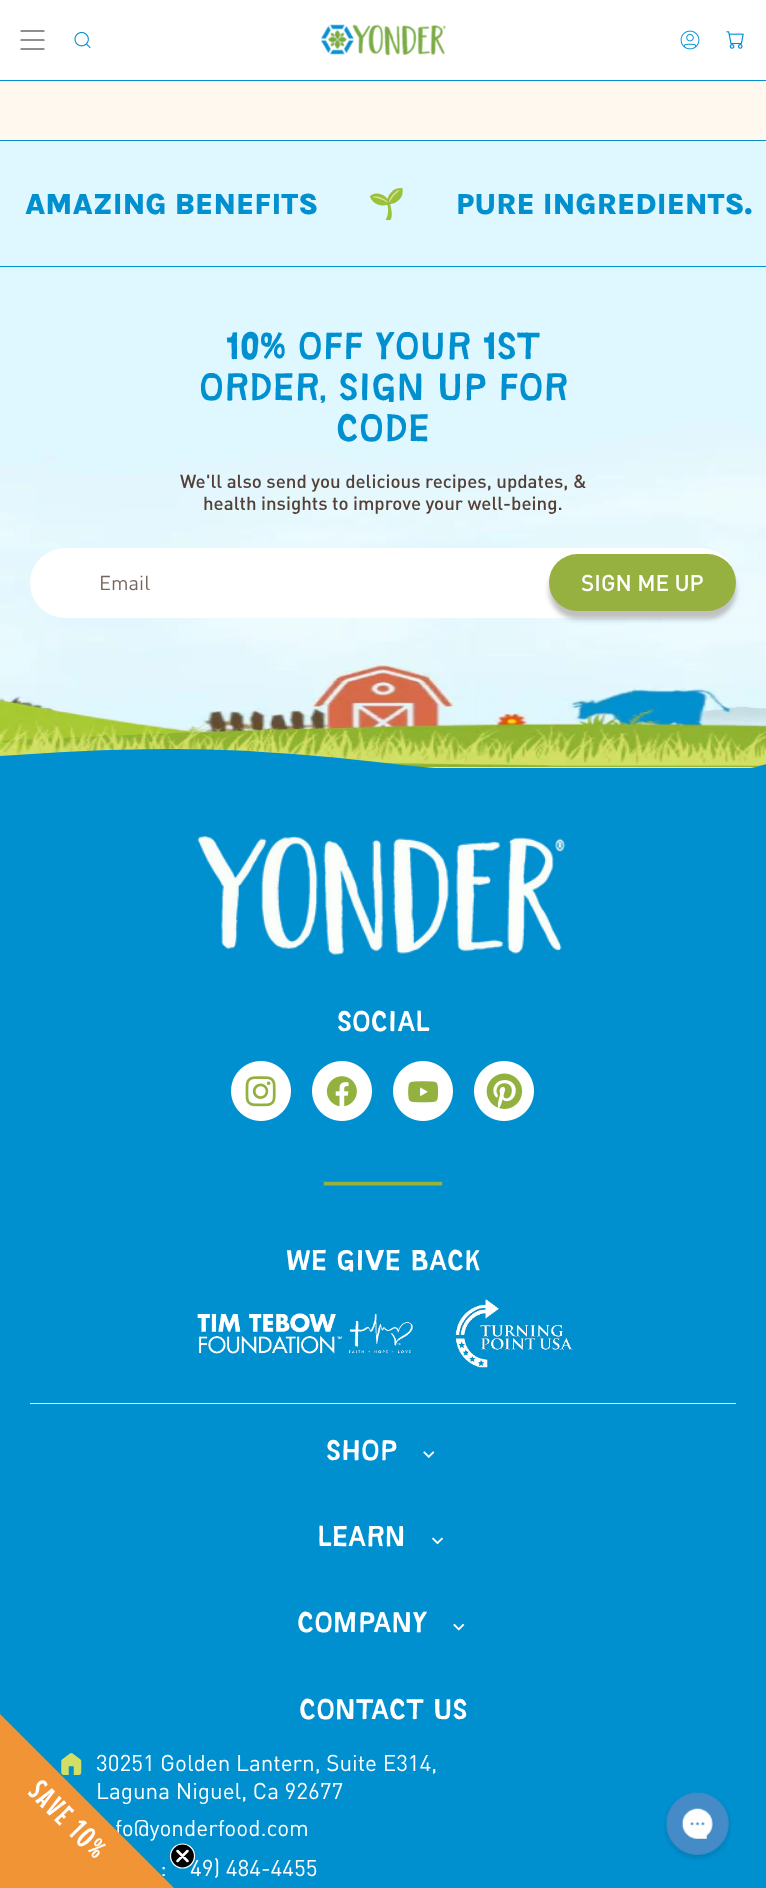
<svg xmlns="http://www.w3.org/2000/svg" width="766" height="1888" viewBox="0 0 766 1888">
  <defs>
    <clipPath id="clip1"><path d="M442.5 1181.5V1186.5H323.5V1181.5Z"/></clipPath>
  </defs>
  <rect width="100%" height="100%" fill="rgb(255,248,238)"/>
  <rect x="0" y="80" width="766" height="1" fill="rgb(0,143,207)"/>
  <rect x="0" y="0" width="766" height="80" fill="rgb(255,255,255)"/>
  <path d="M21 31H44M21 40H44M21 49H44" fill="none" stroke="rgb(33,33,33)" stroke-width="1.2" stroke-linecap="round" stroke-linejoin="round"/>
  <image x="74" y="31" width="17" height="17" href="pic1.png"/>
  <image x="321" y="24" width="125" height="32" href="pic2.png"/>
  <image x="680" y="30" width="20" height="20" href="pic3.png"/>
  <image x="726" y="31" width="18" height="18" href="pic4.png"/>
  <rect x="0" y="140" width="766" height="1" fill="rgb(0,143,207)"/>
  <image x="0" y="142" width="766" height="626" href="pic5.png"/>
  <rect x="0" y="266" width="766" height="1" fill="rgb(0,143,207)"/>
  <text x="25" y="214" font-family="Karla" font-size="30" font-weight="800" fill="rgb(0,143,207)">AMAZING BENEFITS</text>
  <text x="368" y="214" font-family="Noto Color Emoji" font-size="30" font-weight="bold" fill="rgb(0,143,207)">🌱</text>
  <text x="456" y="214" font-family="Karla" font-size="30" font-weight="800" fill="rgb(0,143,207)">PURE INGREDIENTS.</text>
  <g font-family="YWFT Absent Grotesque" font-size="40" font-weight="500" fill="rgb(0,143,207)">
    <text x="226" y="359">10% OFF YOUR 1ST</text>
    <text x="199" y="400">ORDER, SIGN UP FOR</text>
    <text x="336" y="441">CODE</text>
  </g>
  <g font-family="DIN" font-size="18.75" font-weight="500" fill="rgb(84,64,55)">
    <text x="180" y="488">We'll also send you delicious recipes, updates, &amp;</text>
    <text x="203" y="510">health insights to improve your well-being.</text>
  </g>
  <rect x="30" y="548" width="706" height="70" rx="35" fill="rgb(255,255,255)"/>
  <text x="99" y="590" font-family="DIN" font-size="20" fill="rgb(118,102,95)">Email</text>
  <rect x="549" y="561" width="187" height="58" rx="29" fill="rgba(0,0,0,0.25)" filter="blur(2.5px)"/>
  <rect x="549" y="554" width="187" height="57" rx="28.5" fill="rgb(150,177,63)"/>
  <text x="581" y="591" font-family="DIN" font-size="22.5" font-weight="500" fill="rgb(255,255,255)">SIGN ME UP</text>
  <rect x="0" y="768" width="766" height="1120" fill="rgb(0,143,207)"/>
  <image x="61" y="1753" width="21" height="22" href="pic16.png"/>
  <g font-family="DIN" font-size="22.5" fill="rgb(255,255,255)">
    <text>
      <tspan x="96" y="1771">30251 Golden Lantern, Suite E314,</tspan>
      <tspan x="96" y="1799">Laguna Niguel, Ca 92677</tspan>
    </text>
    <text x="115" y="1836">fo@yonderfood.com</text>
    <text x="160" y="1876">:</text>
  </g>
  <path d="M0 1714V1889H175Z" fill="rgb(241,148,54)"/>
  <text x="27" y="1793" transform="rotate(45 27 1793)" font-family="Mouse Memoirs" font-size="30" letter-spacing="2.5" fill="rgb(255,255,255)">SAVE 10%</text>
  <text x="190" y="1876" font-family="DIN" font-size="22.5" fill="rgb(255,255,255)">49) 484-4455</text>
  <circle cx="182.5" cy="1856" r="12" fill="rgb(0,0,0)" stroke="rgb(255,255,255)" stroke-width="1.2"/>
  <path d="M177.5 1851L187.5 1861M177.5 1861L187.5 1851Z" fill="none" stroke="rgb(255,255,255)" stroke-width="2.5" stroke-linecap="round" stroke-linejoin="round"/>
  <path d="M0 756V780H766V764C731 779 519 779 394 764C204 741 104 750 0 756Z" fill="rgb(0,143,207)"/>
  <rect x="30" y="1403" width="706" height="1" fill="rgb(246,243,239)"/>
  <image x="197" y="836" width="369" height="119" href="pic6.png"/>
  <text x="337" y="1031" font-family="YWFT Absent Grotesque" font-size="30" font-weight="500" fill="rgb(255,255,255)">SOCIAL</text>
  <image x="231" y="1061" width="60" height="60" href="pic7.png"/>
  <image x="312" y="1061" width="60" height="60" href="pic8.png"/>
  <image x="393" y="1061" width="60" height="60" href="pic9.png"/>
  <image x="474" y="1061" width="60" height="60" href="pic10.png"/>
  <g clip-path="url(#clip1)">
    <path d="M442.5 1183.5H323.5" fill="none" stroke="rgb(150,177,63)" stroke-width="3.8"/>
  </g>
  <text x="286" y="1270" font-family="YWFT Absent Grotesque" font-size="30" font-weight="500" fill="rgb(255,255,255)">WE GIVE BACK</text>
  <image x="197" y="1313" width="216" height="41" href="pic11.png"/>
  <image x="455" y="1299" width="118" height="69" href="pic12.png"/>
  <text x="326" y="1460" font-family="YWFT Absent Grotesque" font-size="30" font-weight="500" fill="rgb(255,255,255)">SHOP</text>
  <image x="423" y="1451" width="12" height="7" href="pic13.png"/>
  <text x="317" y="1546" font-family="YWFT Absent Grotesque" font-size="30" font-weight="500" fill="rgb(255,255,255)">LEARN</text>
  <image x="432" y="1537" width="11" height="8" href="pic14.png"/>
  <text x="297" y="1632" font-family="YWFT Absent Grotesque" font-size="30" font-weight="500" fill="rgb(255,255,255)">COMPANY</text>
  <image x="453" y="1623" width="12" height="8" href="pic15.png"/>
  <text x="299" y="1719" font-family="YWFT Absent Grotesque" font-size="30" font-weight="500" fill="rgb(255,255,255)">CONTACT US</text>
  <image x="664" y="1792" width="67" height="68" href="pic17.png"/>
</svg>
